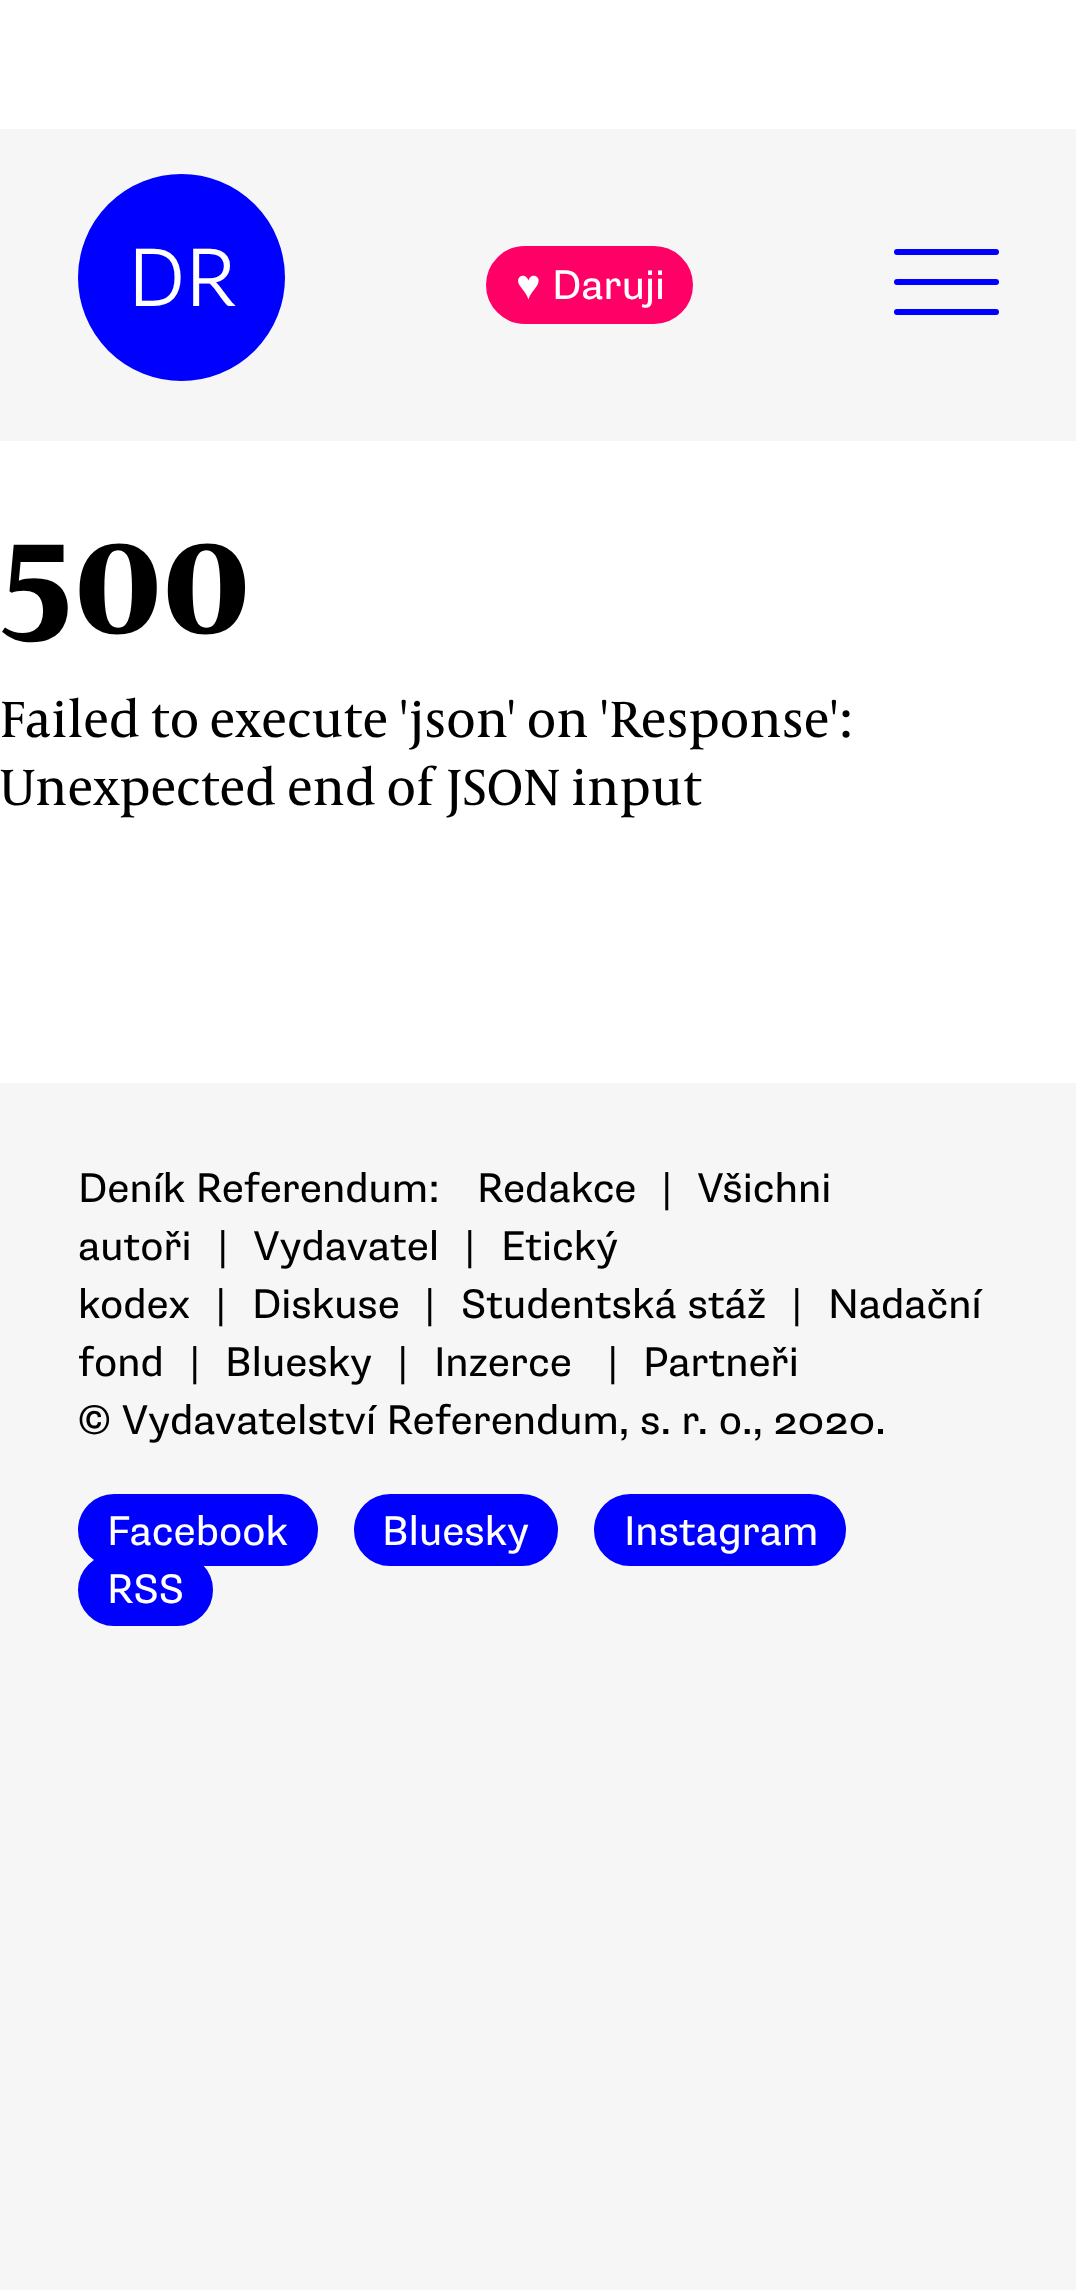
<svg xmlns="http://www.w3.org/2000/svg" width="1076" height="2290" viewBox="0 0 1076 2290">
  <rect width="100%" height="100%" fill="rgb(246,246,246)"/>
  <rect x="0" y="0" width="1076" height="129" fill="rgb(255,255,255)"/>
  <circle cx="181.5" cy="277.5" r="102" fill="rgb(0,0,255)" stroke="rgb(0,0,255)" stroke-width="3"/>
  <text x="128" y="306" font-family="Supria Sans" font-size="83" font-weight="300" fill="rgb(255,255,255)">DR</text>
  <rect x="487.5" y="247.5" width="204" height="75" rx="37.5" fill="rgb(255,0,102)" stroke="rgb(255,0,102)" stroke-width="3"/>
  <text x="516" y="299" font-family="Liberation Sans" font-size="41.6" fill="rgb(255,255,255)">♥</text>
  <text x="552" y="299" font-family="Supria Sans" font-size="41.6" fill="rgb(255,255,255)">Daruji</text>
  <rect x="894" y="279" width="105" height="6" rx="3" fill="rgb(0,0,255)"/>
  <rect x="894" y="249" width="105" height="6" rx="3" fill="rgb(0,0,255)"/>
  <rect x="894" y="309" width="105" height="6" rx="3" fill="rgb(0,0,255)"/>
  <rect x="0" y="441" width="1076" height="642" fill="rgb(255,255,255)"/>
  <text x="0" y="633" font-family="'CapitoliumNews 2'" font-size="146" font-weight="bold" fill="rgb(0,0,0)">500</text>
  <g font-family="'CapitoliumNews 2'" font-size="52" fill="rgb(0,0,0)">
    <text>
      <tspan x="0" y="737">Failed to execute 'json' on 'Response':</tspan>
      <tspan x="0" y="805">Unexpected end of JSON input</tspan>
    </text>
  </g>
  <g font-family="Supria Sans" font-size="41.6" fill="rgb(0,0,0)">
    <text x="78" y="1202">Deník Referendum:</text>
    <text x="477" y="1202">Redakce</text>
    <text x="662" y="1202">|</text>
    <text x="697" y="1202">Všichni</text>
    <text x="78" y="1260">autoři</text>
    <text x="218" y="1260">|</text>
    <text x="253" y="1260">Vydavatel</text>
    <text x="465" y="1260">|</text>
    <text x="501" y="1260">Etický</text>
    <text x="78" y="1318">kodex</text>
    <text x="216" y="1318">|</text>
    <text x="252" y="1318">Diskuse</text>
    <text x="425" y="1318">|</text>
    <text x="461" y="1318">Studentská stáž</text>
    <text x="792" y="1318">|</text>
    <text x="828" y="1318">Nadační</text>
    <text x="78" y="1376">fond</text>
    <text x="190" y="1376">|</text>
    <text x="225" y="1376">Bluesky</text>
    <text x="398" y="1376">|</text>
    <text x="434" y="1376">Inzerce</text>
    <text x="608" y="1376">|</text>
    <text x="643" y="1376">Partneři</text>
  </g>
  <text x="78" y="1434" font-family="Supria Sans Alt" font-size="41.6" fill="rgb(0,0,0)">© Vydavatelství Referendum, s. r. o., 2020.</text>
  <rect x="79.5" y="1495.5" width="237" height="69" rx="34.5" fill="rgb(0,0,255)" stroke="rgb(0,0,255)" stroke-width="3"/>
  <text x="107" y="1545" font-family="Supria Sans" font-size="41.6" fill="rgb(255,255,255)">Facebook</text>
  <rect x="355.5" y="1495.5" width="201" height="69" rx="34.5" fill="rgb(0,0,255)" stroke="rgb(0,0,255)" stroke-width="3"/>
  <text x="382" y="1545" font-family="Supria Sans" font-size="41.6" fill="rgb(255,255,255)">Bluesky</text>
  <rect x="595.5" y="1495.5" width="249" height="69" rx="34.5" fill="rgb(0,0,255)" stroke="rgb(0,0,255)" stroke-width="3"/>
  <text x="624" y="1545" font-family="Supria Sans" font-size="41.6" fill="rgb(255,255,255)">Instagram</text>
  <rect x="79.5" y="1555.5" width="132" height="69" rx="34.5" fill="rgb(0,0,255)" stroke="rgb(0,0,255)" stroke-width="3"/>
  <text x="107" y="1603" font-family="Supria Sans" font-size="41.6" fill="rgb(255,255,255)">RSS</text>
</svg>
